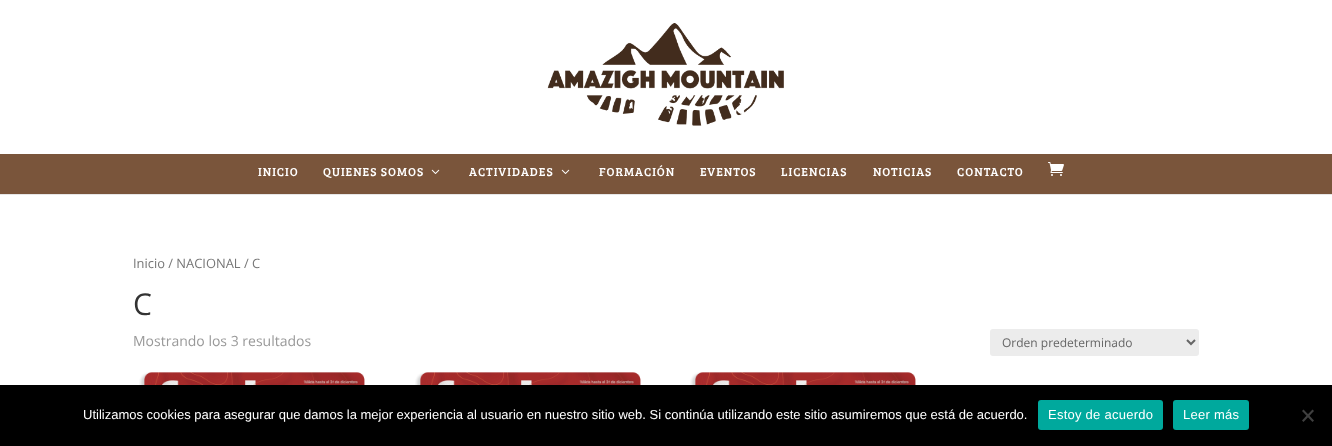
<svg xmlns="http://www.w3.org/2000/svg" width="1332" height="446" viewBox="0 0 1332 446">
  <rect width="100%" height="100%" fill="rgb(255,255,255)"/>
  <rect x="0" y="194" width="1332" height="1" fill="rgb(230,230,230)"/>
  <image x="547" y="23" width="237" height="103" href="pic1.png"/>
  <rect x="0" y="154" width="1332" height="40" fill="rgb(122,85,59)"/>
  <g font-family="Bree Serif" font-size="12" letter-spacing="1" fill="rgb(255,255,255)">
    <text x="258" y="176">INICIO</text>
    <text x="323" y="176">QUIENES SOMOS</text>
  </g>
  <image x="431" y="169" width="9" height="5" href="pic2.png"/>
  <text x="469" y="176" font-family="Bree Serif" font-size="12" letter-spacing="1" fill="rgb(255,255,255)">ACTIVIDADES</text>
  <image x="561" y="169" width="9" height="5" href="pic2.png"/>
  <g font-family="Bree Serif" font-size="12" letter-spacing="1" fill="rgb(255,255,255)">
    <text x="599" y="176">FORMACIÓN</text>
    <text x="700" y="176">EVENTOS</text>
    <text x="781" y="176">LICENCIAS</text>
    <text x="873" y="176">NOTICIAS</text>
    <text x="957" y="176">CONTACTO</text>
  </g>
  <image x="1048" y="162" width="16" height="14" href="pic3.png"/>
  <text x="133" y="268" font-family="Open Sans" font-size="12.9" fill="rgb(118,118,118)">Inicio / NACIONAL / C</text>
  <text x="133" y="315" font-family="Open Sans" font-size="30" fill="rgb(51,51,51)">C</text>
  <text x="133" y="346" font-family="Open Sans" font-size="14" fill="rgb(153,153,153)">Mostrando los 3 resultados</text>
  <rect x="990" y="329" width="209" height="27" rx="3" fill="rgb(236,236,236)"/>
  <path d="M1187 340L1191 344L1195 340" fill="none" stroke="rgb(102,102,102)" stroke-width="2"/>
  <text x="1002" y="347" font-family="Open Sans" font-size="12" fill="rgb(102,102,102)">Orden predeterminado</text>
  <image x="139" y="372" width="226" height="13" href="pic4.png"/>
  <image x="415" y="372" width="226" height="13" href="pic5.png"/>
  <image x="690" y="372" width="226" height="13" href="pic4.png"/>
  <rect x="0" y="385" width="1332" height="61" fill="rgb(0,0,0)"/>
  <text x="83" y="419" font-family="Liberation Sans" font-size="13" fill="rgb(255,255,255)">Utilizamos cookies para asegurar que damos la mejor experiencia al usuario en nuestro sitio web. Si continúa utilizando este sitio asumiremos que está de acuerdo.</text>
  <rect x="1038" y="400" width="125" height="30" rx="3" fill="rgb(0,169,157)"/>
  <text x="1048" y="419" font-family="Liberation Sans" font-size="13" letter-spacing="0.25" fill="rgb(255,255,255)">Estoy de acuerdo</text>
  <rect x="1173" y="400" width="76" height="30" rx="3" fill="rgb(0,169,157)"/>
  <text x="1183" y="419" font-family="Liberation Sans" font-size="13" letter-spacing="0.25" fill="rgb(255,255,255)">Leer más</text>
  <path d="M1312.5 409.5L1314 411L1303.5 422L1302 420.5Z" fill="rgb(64,64,64)"/>
  <path d="M1302 411L1303.5 409.5L1314 420.5L1312.5 422Z" fill="rgb(64,64,64)"/>
</svg>
